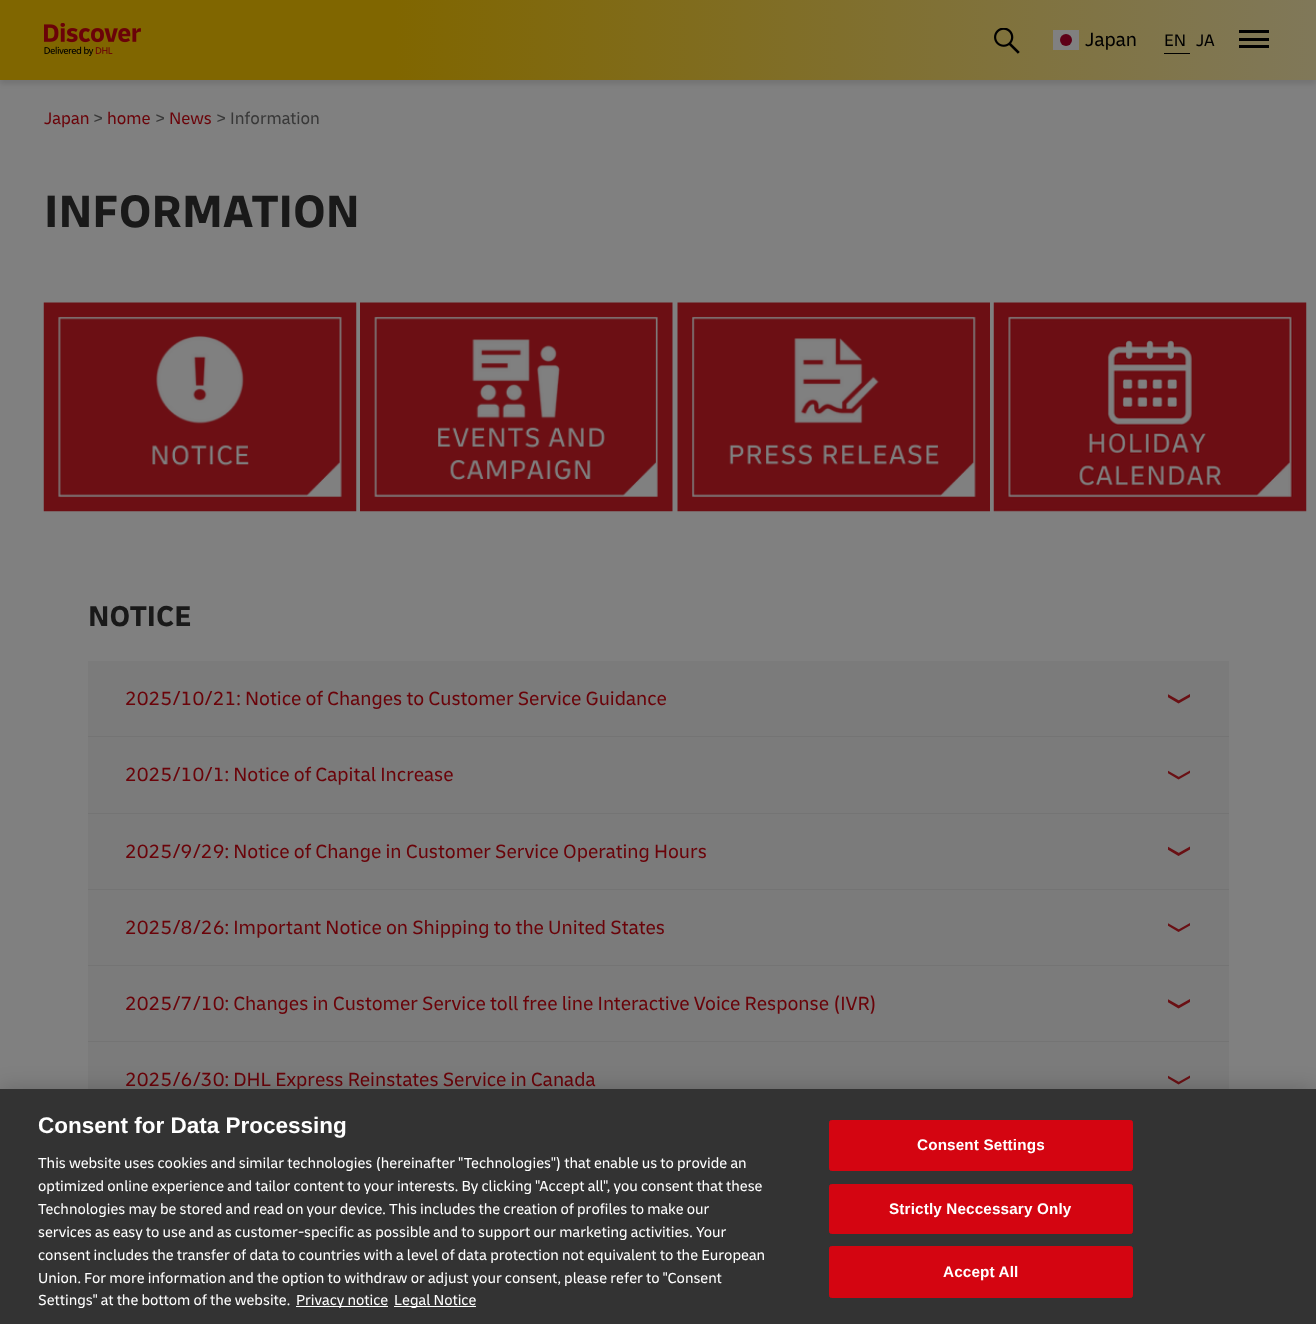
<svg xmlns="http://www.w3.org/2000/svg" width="1316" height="1324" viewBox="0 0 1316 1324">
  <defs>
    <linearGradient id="g1" gradientUnits="userSpaceOnUse" x1="0" y1="40" x2="1316" y2="40"><stop offset="0" stop-color="rgb(128,102,0)"/><stop offset="0.3" stop-color="rgb(128,102,0)"/><stop offset="0.79" stop-color="rgb(128,115,64)"/><stop offset="1" stop-color="rgb(128,120,89)"/></linearGradient>
    <clipPath id="clip1"><rect x="1168" y="694" width="22" height="10"/></clipPath>
    <clipPath id="clip2"><rect x="1168" y="770" width="22" height="10"/></clipPath>
    <clipPath id="clip3"><rect x="1168" y="846" width="22" height="10"/></clipPath>
    <clipPath id="clip4"><rect x="1168" y="923" width="22" height="10"/></clipPath>
    <clipPath id="clip5"><rect x="1168" y="999" width="22" height="10"/></clipPath>
    <clipPath id="clip6"><rect x="1168" y="1075" width="22" height="10"/></clipPath>
  </defs>
  <rect width="100%" height="100%" fill="rgb(128,128,128)"/>
  <rect x="0" y="4" width="1316" height="80" fill="rgba(0,0,0,0.1)" filter="blur(2.5px)"/>
  <rect x="0" y="0" width="1316" height="80" fill="url(#g1)"/>
  <image x="44" y="23" width="97" height="33" href="pic1.png"/>
  <image x="994" y="28" width="26" height="26" href="pic2.png"/>
  <rect x="1053" y="30" width="26" height="20" fill="rgb(128,128,128)"/>
  <circle cx="1066" cy="40" r="6" fill="rgb(94,0,23)"/>
  <text x="1085" y="46" font-family="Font" font-size="20" fill="rgb(0,0,0)">Japan</text>
  <text x="1164" y="46" font-family="Font" font-size="17.5" fill="rgb(0,0,0)">EN</text>
  <rect x="1164" y="53" width="26" height="1" fill="rgb(0,0,0)"/>
  <text x="1196" y="46" font-family="Font" font-size="17.5" fill="rgb(0,0,0)">JA</text>
  <rect x="1239" y="38" width="30" height="3" fill="rgb(0,0,0)"/>
  <rect x="1239" y="30" width="30" height="3" fill="rgb(0,0,0)"/>
  <rect x="1239" y="45" width="30" height="3" fill="rgb(0,0,0)"/>
  <text x="44" y="124" font-family="Font" font-size="17.5" fill="rgb(106,3,9)">Japan</text>
  <text x="93" y="124" font-family="Font" font-size="17.5" fill="rgb(56,56,56)">&gt;</text>
  <text x="107" y="124" font-family="Font" font-size="17.5" fill="rgb(106,3,9)">home</text>
  <text x="155" y="124" font-family="Font" font-size="17.5" fill="rgb(56,56,56)">&gt;</text>
  <text x="169" y="124" font-family="Font" font-size="17.5" fill="rgb(106,3,9)">News</text>
  <g font-family="Font" font-size="17.5" fill="rgb(56,56,56)">
    <text x="216" y="124">&gt;</text>
    <text x="230" y="124">Information</text>
  </g>
  <text x="44" y="227" font-family="Font" font-size="47.5" font-weight="bold" fill="rgb(25,25,25)">INFORMATION</text>
  <image x="43" y="302" width="314" height="210" href="pic3.png"/>
  <image x="360" y="302" width="313" height="210" href="pic4.png"/>
  <image x="677" y="302" width="313" height="210" href="pic5.png"/>
  <image x="993" y="302" width="314" height="210" href="pic6.png"/>
  <text x="88" y="626" font-family="Font" font-size="30" font-weight="bold" fill="rgb(25,25,25)">NOTICE</text>
  <rect x="88" y="661" width="1141" height="428" fill="rgb(123,123,123)"/>
  <text x="125" y="705" font-family="Font" font-size="20" fill="rgb(106,3,9)">2025/10/21: Notice of Changes to Customer Service Guidance</text>
  <g clip-path="url(#clip1)">
    <path d="M1178.5 700.5L1190 694V697L1178.5 703.5L1167.5 697V694L1179 700.5Z" fill="rgb(106,16,20)"/>
  </g>
  <rect x="88" y="736" width="1141" height="1" fill="rgb(116,116,116)"/>
  <text x="125" y="781" font-family="Font" font-size="20" fill="rgb(106,3,9)">2025/10/1: Notice of Capital Increase</text>
  <g clip-path="url(#clip2)">
    <path d="M1178.5 777L1190 770.5V773L1178.5 779.5L1167.5 773V770.5L1179 777Z" fill="rgb(106,16,20)"/>
  </g>
  <rect x="88" y="813" width="1141" height="1" fill="rgb(116,116,116)"/>
  <text x="125" y="858" font-family="Font" font-size="20" fill="rgb(106,3,9)">2025/9/29: Notice of Change in Customer Service Operating Hours</text>
  <g clip-path="url(#clip3)">
    <path d="M1178.5 853L1190 846.5V849.5L1178.5 856L1167.5 849.5V846.5L1179 853Z" fill="rgb(106,16,20)"/>
  </g>
  <rect x="88" y="889" width="1141" height="1" fill="rgb(116,116,116)"/>
  <text x="125" y="934" font-family="Font" font-size="20" fill="rgb(106,3,9)">2025/8/26: Important Notice on Shipping to the United States</text>
  <g clip-path="url(#clip4)">
    <path d="M1178.5 929.5L1190 923V925.5L1178.5 932L1167.5 925.5V923L1179 929.5Z" fill="rgb(106,16,20)"/>
  </g>
  <rect x="88" y="965" width="1141" height="1" fill="rgb(116,116,116)"/>
  <text x="125" y="1010" font-family="Font" font-size="20" fill="rgb(106,3,9)">2025/7/10: Changes in Customer Service toll free line Interactive Voice Response (IVR)</text>
  <g clip-path="url(#clip5)">
    <path d="M1178.5 1005.5L1190 999V1002L1178.5 1008.5L1167.5 1002V999L1179 1005.5Z" fill="rgb(106,16,20)"/>
  </g>
  <rect x="88" y="1041" width="1141" height="1" fill="rgb(116,116,116)"/>
  <text x="125" y="1086" font-family="Font" font-size="20" fill="rgb(106,3,9)">2025/6/30: DHL Express Reinstates Service in Canada</text>
  <g clip-path="url(#clip6)">
    <path d="M1178.5 1082L1190 1075.5V1078L1178.5 1084.5L1167.5 1078V1075.5L1179 1082Z" fill="rgb(106,16,20)"/>
  </g>
  <rect x="0" y="1089" width="1316" height="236" fill="rgba(0,0,0,0.2)" filter="blur(11px)"/>
  <rect x="0" y="1089" width="1316" height="235" fill="rgb(51,51,51)"/>
  <text x="38" y="1133" font-family="Liberation Sans" font-size="22.5" font-weight="bold" fill="rgb(255,255,255)">Consent for Data Processing</text>
  <g font-family="Font" font-size="15.25" fill="rgb(255,255,255)">
    <text>
      <tspan x="38" y="1168">This website uses cookies and similar technologies (hereinafter "Technologies") that enable us to provide an</tspan>
      <tspan x="38" y="1191">optimized online experience and tailor content to your interests. By clicking "Accept all", you consent that these</tspan>
      <tspan x="38" y="1214">Technologies may be stored and read on your device. This includes the creation of profiles to make our</tspan>
      <tspan x="38" y="1237">services as easy to use and as customer-specific as possible and to support our marketing activities. Your</tspan>
      <tspan x="38" y="1260">consent includes the transfer of data to countries with a level of data protection not equivalent to the European</tspan>
      <tspan x="38" y="1283">Union. For more information and the option to withdraw or adjust your consent, please refer to "Consent</tspan>
      <tspan x="38" y="1305">Settings" at the bottom of the website.</tspan>
    </text>
  </g>
  <rect x="296" y="1306" width="92" height="1" fill="rgb(255,255,255)"/>
  <text x="296" y="1305" font-family="Font" font-size="15.25" fill="rgb(255,255,255)">Privacy notice</text>
  <rect x="394" y="1306" width="82" height="1" fill="rgb(255,255,255)"/>
  <text x="394" y="1305" font-family="Font" font-size="15.25" fill="rgb(255,255,255)">Legal Notice</text>
  <rect x="829.5" y="1120.5" width="303" height="50" rx="2" fill="rgb(212,5,17)" stroke="rgb(212,5,17)"/>
  <text x="917" y="1150" font-family="Liberation Sans" font-size="15.25" font-weight="bold" letter-spacing="0.15" fill="rgb(255,255,255)">Consent Settings</text>
  <rect x="829.5" y="1184.5" width="303" height="49" rx="2" fill="rgb(212,5,17)" stroke="rgb(212,5,17)"/>
  <text x="889" y="1214" font-family="Liberation Sans" font-size="15.25" font-weight="bold" letter-spacing="0.15" fill="rgb(255,255,255)">Strictly Neccessary Only</text>
  <rect x="829.5" y="1246.5" width="303" height="51" rx="2" fill="rgb(212,5,17)" stroke="rgb(212,5,17)"/>
  <text x="943" y="1277" font-family="Liberation Sans" font-size="15.25" font-weight="bold" letter-spacing="0.15" fill="rgb(255,255,255)">Accept All</text>
</svg>
